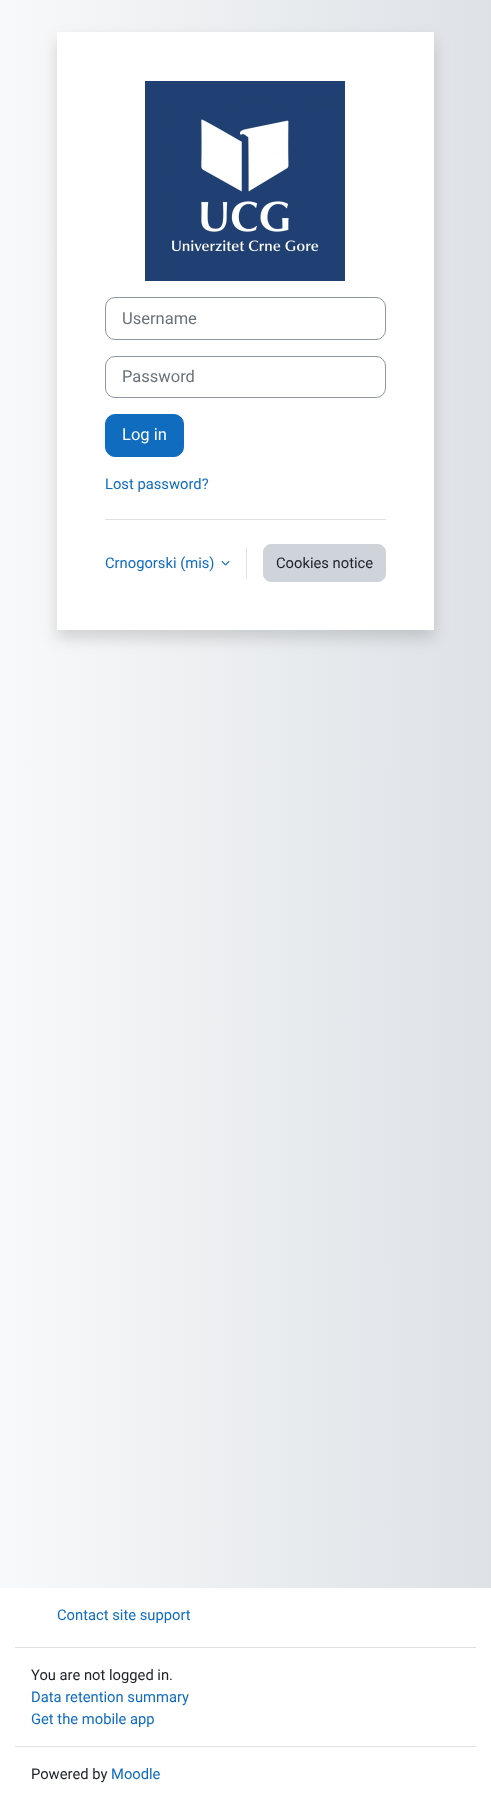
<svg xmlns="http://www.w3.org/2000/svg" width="491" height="1801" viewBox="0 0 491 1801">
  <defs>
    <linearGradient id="g1" gradientUnits="userSpaceOnUse" x1="0" y1="794" x2="491" y2="794"><stop offset="0" stop-color="rgb(248,249,250)"/><stop offset="1" stop-color="rgb(222,226,230)"/></linearGradient>
  </defs>
  <rect width="100%" height="100%" fill="rgb(255,255,255)"/>
  <rect x="0" y="0" width="491" height="1588" fill="url(#g1)"/>
  <rect x="57" y="40" width="377" height="598" fill="rgba(0,0,0,0.15)" filter="blur(8px)"/>
  <rect x="57" y="32" width="377" height="598" fill="rgb(255,255,255)"/>
  <image x="145" y="81" width="200" height="200" href="pic1.png"/>
  <rect x="105.5" y="297.5" width="280" height="42" rx="9.5" fill="none" stroke="rgb(143,149,158)"/>
  <text x="122" y="324" font-family="Roboto" font-size="16.5" fill="rgb(106,115,123)">Username</text>
  <rect x="105.5" y="356.5" width="280" height="41" rx="9.5" fill="none" stroke="rgb(143,149,158)"/>
  <text x="122" y="382" font-family="Roboto" font-size="16.5" fill="rgb(106,115,123)">Password</text>
  <rect x="105.5" y="414.5" width="78" height="42" rx="9.5" fill="rgb(15,108,191)" stroke="rgb(15,108,191)"/>
  <text x="122" y="440" font-family="Roboto" font-size="16.5" fill="rgb(255,255,255)">Log in</text>
  <text x="105" y="489" font-family="Roboto" font-size="14.75" fill="rgb(15,108,191)">Lost password?</text>
  <rect x="105" y="519" width="281" height="1" fill="rgb(222,226,230)"/>
  <text x="105" y="568" font-family="Roboto" font-size="14.75" fill="rgb(15,108,191)">Crnogorski (mis)</text>
  <image x="221" y="561" width="9" height="5" href="pic2.png"/>
  <rect x="246" y="548" width="1" height="30" fill="rgb(222,226,230)"/>
  <rect x="263.5" y="544.5" width="122" height="37" rx="7.5" fill="rgb(206,212,218)" stroke="rgb(206,212,218)"/>
  <text x="276" y="568" font-family="Roboto" font-size="14.75" fill="rgb(29,33,37)">Cookies notice</text>
  <rect x="15" y="1647" width="461" height="1" fill="rgb(222,226,230)"/>
  <text x="57" y="1620" font-family="Roboto" font-size="14.75" fill="rgb(15,108,191)">Contact site support</text>
  <rect x="15" y="1746" width="461" height="1" fill="rgb(222,226,230)"/>
  <text x="31" y="1680" font-family="Roboto" font-size="14.75" fill="rgb(29,33,37)">You are not logged in.</text>
  <g font-family="Roboto" font-size="14.75" fill="rgb(15,108,191)">
    <text>
      <tspan x="31" y="1702">Data retention summary</tspan>
      <tspan x="31" y="1724">Get the mobile app</tspan>
    </text>
  </g>
  <text x="31" y="1779" font-family="Roboto" font-size="14.75" fill="rgb(29,33,37)">Powered by</text>
  <text x="111" y="1779" font-family="Roboto" font-size="14.75" fill="rgb(15,108,191)">Moodle</text>
</svg>
